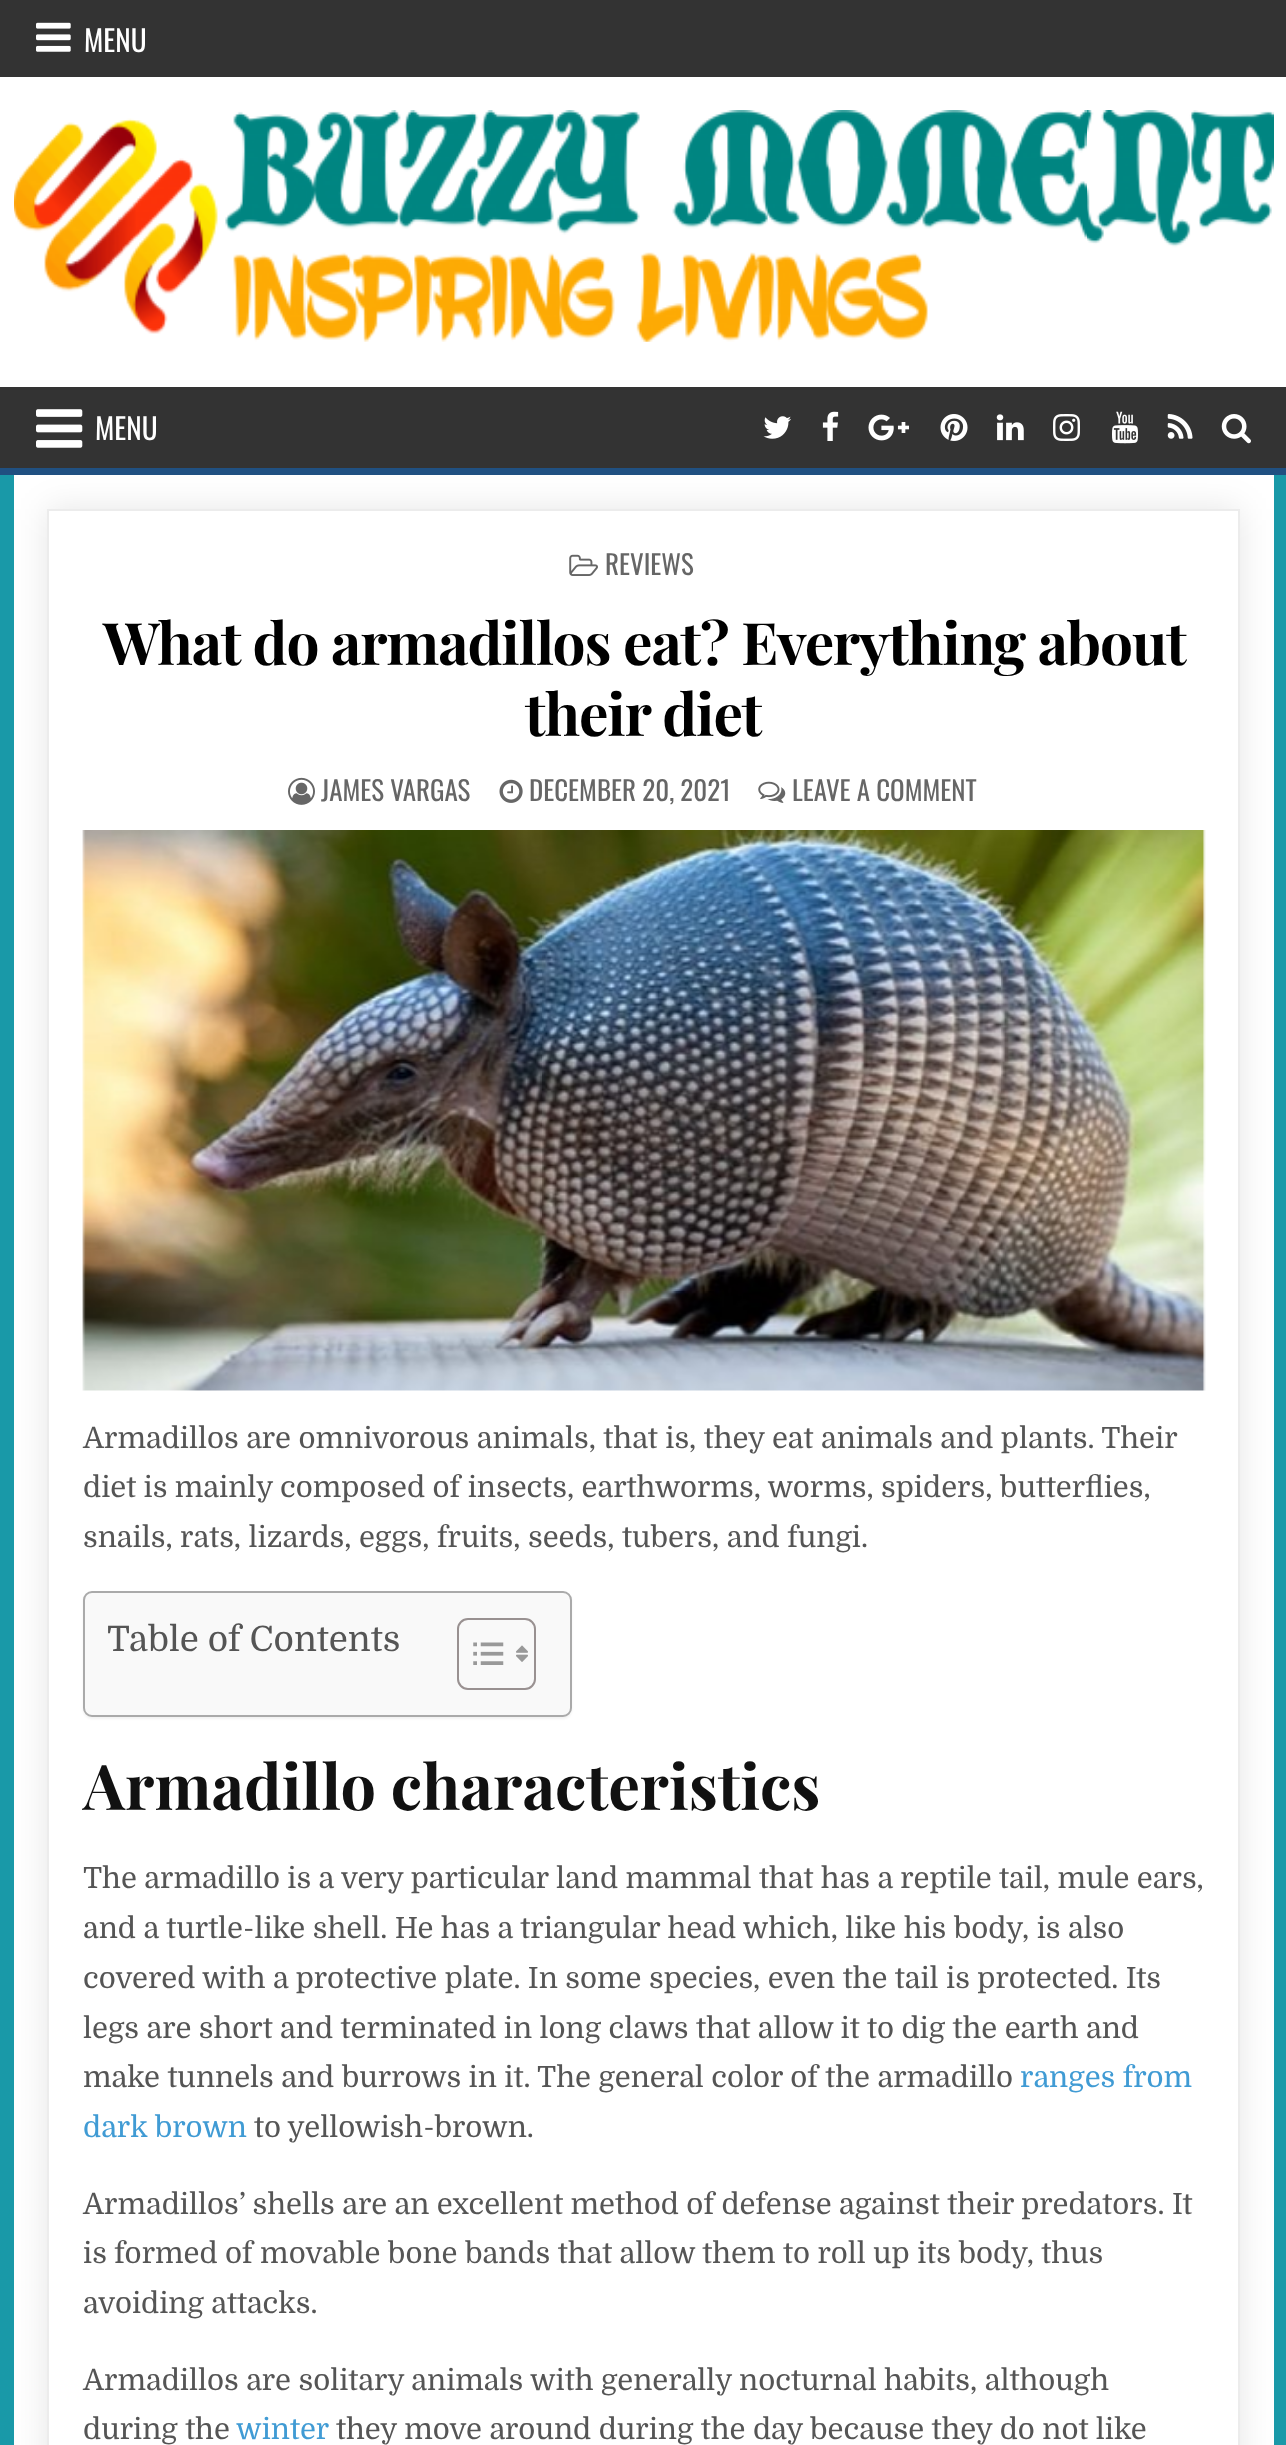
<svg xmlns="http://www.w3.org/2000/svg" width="1286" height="2445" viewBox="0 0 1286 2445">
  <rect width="100%" height="100%" fill="rgb(25,153,168)"/>
  <rect x="0" y="0" width="1286" height="77" fill="rgb(51,51,51)"/>
  <image x="36" y="22" width="35" height="30" href="pic1.png"/>
  <text x="84" y="52" font-family="Oswald" font-size="29.25" fill="rgb(255,255,255)">MENU</text>
  <rect x="0" y="77" width="1286" height="310" fill="rgb(255,255,255)"/>
  <image x="14" y="110" width="1260" height="232" href="pic2.png"/>
  <rect x="0" y="387" width="1286" height="81" fill="rgb(51,51,51)"/>
  <rect x="0" y="468" width="1286" height="7" fill="rgb(32,80,129)"/>
  <image x="36" y="409" width="47" height="39" href="pic3.png"/>
  <text x="95" y="440" font-family="Oswald" font-size="29.25" fill="rgb(255,255,255)">MENU</text>
  <image x="763" y="416" width="28" height="23" href="pic4.png"/>
  <image x="822" y="411" width="17" height="30" href="pic5.png"/>
  <image x="868" y="414" width="41" height="27" href="pic6.png"/>
  <image x="940" y="414" width="28" height="27" href="pic7.png"/>
  <image x="996" y="414" width="28" height="27" href="pic8.png"/>
  <image x="1053" y="414" width="27" height="27" href="pic9.png"/>
  <image x="1112" y="411" width="26" height="33" href="pic10.png"/>
  <image x="1167" y="414" width="26" height="25" href="pic11.png"/>
  <image x="1221" y="414" width="30" height="30" href="pic12.png"/>
  <rect x="14" y="475" width="1260" height="1970" fill="rgb(255,255,255)"/>
  <rect x="47" y="509" width="1193" height="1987" fill="rgba(0,0,0,0.1)" filter="blur(17px)"/>
  <rect x="48" y="510" width="1191" height="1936" fill="rgb(255,255,255)" stroke="rgb(236,236,236)" stroke-width="2"/>
  <image x="569" y="554" width="29" height="22" href="pic13.png"/>
  <text x="605" y="575" font-family="Oswald" font-size="27" fill="rgb(102,102,102)">REVIEWS</text>
  <g font-family="Playfair Display" font-size="58.5" font-weight="bold" letter-spacing="-1.1" fill="rgb(0,0,0)">
    <text x="103" y="665">What do armadillos eat? Everything about</text>
    <text x="525" y="736">their diet</text>
  </g>
  <image x="288" y="777" width="27" height="28" href="pic14.png"/>
  <text x="321" y="801" font-family="Oswald" font-size="27" fill="rgb(102,102,102)">JAMES VARGAS</text>
  <image x="499" y="779" width="24" height="24" href="pic15.png"/>
  <text x="529" y="801" font-family="Oswald" font-size="27" fill="rgb(102,102,102)">DECEMBER 20, 2021</text>
  <image x="758" y="781" width="28" height="22" href="pic16.png"/>
  <text x="792" y="801" font-family="Oswald" font-size="27" fill="rgb(102,102,102)">LEAVE A COMMENT</text>
  <image x="82" y="830" width="1124" height="561" href="pic17.png"/>
  <g font-family="Domine" font-size="29.25" fill="rgb(85,85,85)">
    <text>
      <tspan x="83" y="1448">Armadillos are omnivorous animals, that is, they eat animals and plants. Their</tspan>
      <tspan x="83" y="1497">diet is mainly composed of insects, earthworms, worms, spiders, butterflies,</tspan>
      <tspan x="83" y="1547">snails, rats, lizards, eggs, fruits, seeds, tubers, and fungi.</tspan>
    </text>
  </g>
  <rect x="83" y="1593" width="489" height="126" rx="9" fill="rgba(0,0,0,0.05)" filter="blur(1px)"/>
  <rect x="84" y="1592" width="487" height="124" rx="8" fill="rgb(249,249,249)" stroke="rgb(170,170,170)" stroke-width="2"/>
  <text x="107" y="1651" font-family="Domine" font-size="35" fill="rgb(85,85,85)">Table of Contents</text>
  <rect x="458" y="1619" width="77" height="70" rx="10" fill="none" stroke="rgb(153,145,145)" stroke-width="2"/>
  <image x="473" y="1642" width="31" height="23" href="pic18.png"/>
  <image x="516" y="1645" width="12" height="17" href="pic19.png"/>
  <text x="83" y="1810" font-family="Playfair Display" font-size="63" font-weight="bold" fill="rgb(17,17,17)">Armadillo characteristics</text>
  <g font-family="Domine" font-size="29.25" fill="rgb(85,85,85)">
    <text>
      <tspan x="83" y="1888">The armadillo is a very particular land mammal that has a reptile tail, mule ears,</tspan>
      <tspan x="83" y="1938">and a turtle-like shell. He has a triangular head which, like his body, is also</tspan>
      <tspan x="83" y="1988">covered with a protective plate. In some species, even the tail is protected. Its</tspan>
      <tspan x="83" y="2038">legs are short and terminated in long claws that allow it to dig the earth and</tspan>
      <tspan x="83" y="2087">make tunnels and burrows in it. The general color of the armadillo</tspan>
    </text>
  </g>
  <g font-family="Domine" font-size="29.25" fill="rgb(64,155,212)">
    <text x="1020" y="2087">ranges from</text>
    <text x="83" y="2137">dark brown</text>
  </g>
  <g font-family="Domine" font-size="29.25" fill="rgb(85,85,85)">
    <text x="254" y="2137">to yellowish-brown.</text>
    <text>
      <tspan x="83" y="2214">Armadillos’ shells are an excellent method of defense against their predators. It</tspan>
      <tspan x="83" y="2263">is formed of movable bone bands that allow them to roll up its body, thus</tspan>
      <tspan x="83" y="2313">avoiding attacks.</tspan>
    </text>
    <text>
      <tspan x="83" y="2390">Armadillos are solitary animals with generally nocturnal habits, although</tspan>
      <tspan x="83" y="2439">during the</tspan>
    </text>
  </g>
  <text x="236" y="2439" font-family="Domine" font-size="29.25" fill="rgb(64,155,212)">winter</text>
  <text x="336" y="2439" font-family="Domine" font-size="29.25" fill="rgb(85,85,85)">they move around during the day because they do not like</text>
</svg>
